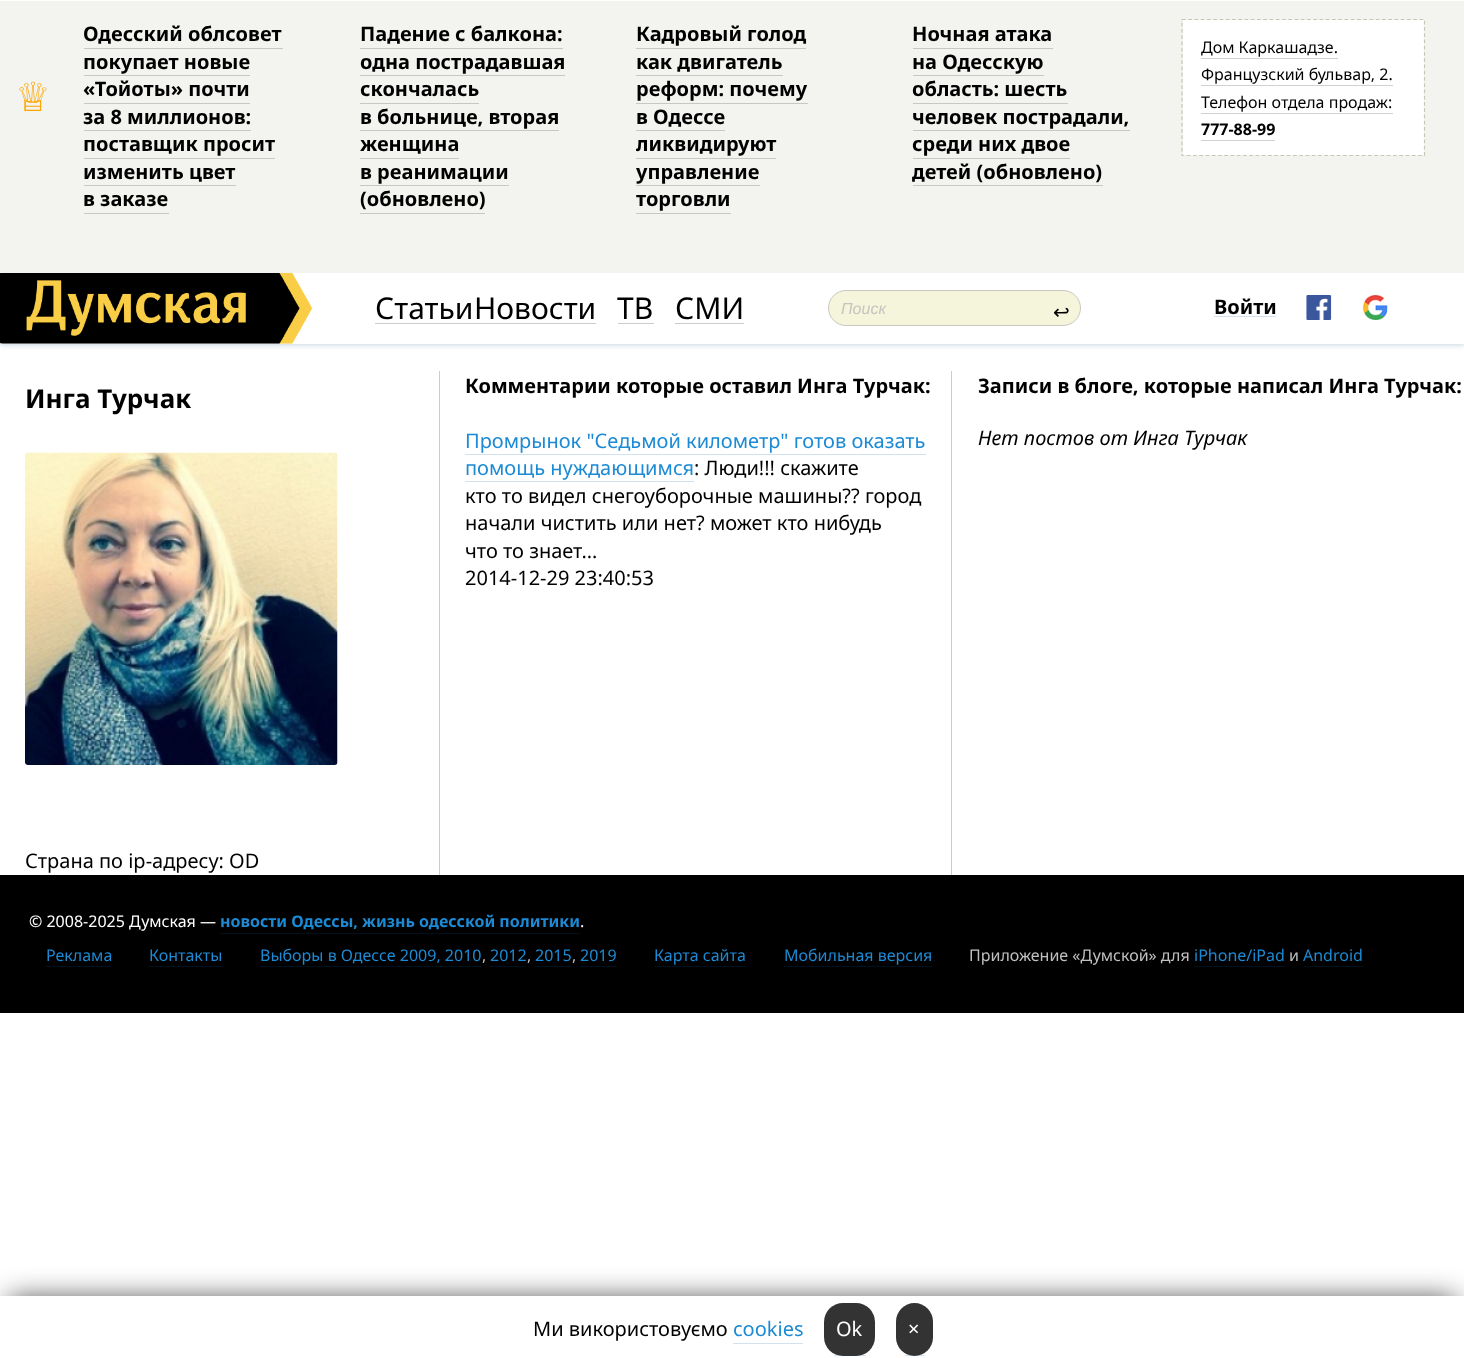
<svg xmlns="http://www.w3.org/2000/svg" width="1464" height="1358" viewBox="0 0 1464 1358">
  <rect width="100%" height="100%" fill="rgb(255,255,255)"/>
  <rect x="0" y="273" width="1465" height="71" fill="rgba(0,79,122,0.3)" filter="blur(3px)"/>
  <rect x="0" y="1" width="1464" height="272" fill="rgb(243,243,239)"/>
  <text x="15" y="111" font-family="DejaVu Sans" font-size="40" fill="rgb(255,165,0)">♕</text>
  <text x="83" y="41" font-family="Noto Sans" font-size="20" font-weight="bold" fill="rgb(0,0,0)">Одесский облсовет</text>
  <rect x="84" y="48" width="199" height="1" fill="rgb(199,199,196)"/>
  <text x="83" y="69" font-family="Noto Sans" font-size="20" font-weight="bold" fill="rgb(0,0,0)">покупает новые</text>
  <rect x="84" y="75" width="166" height="1" fill="rgb(199,199,196)"/>
  <g font-family="Noto Sans" font-size="20" font-weight="bold" fill="rgb(0,0,0)">
    <text>
      <tspan x="83" y="96">«Тойоты» почти</tspan>
      <tspan x="83" y="124">за 8 миллионов:</tspan>
    </text>
  </g>
  <rect x="84" y="103" width="166" height="1" fill="rgb(199,199,196)"/>
  <rect x="84" y="130" width="167" height="1" fill="rgb(199,199,196)"/>
  <text x="83" y="151" font-family="Noto Sans" font-size="20" font-weight="bold" fill="rgb(0,0,0)">поставщик просит</text>
  <rect x="84" y="158" width="191" height="1" fill="rgb(199,199,196)"/>
  <text x="83" y="179" font-family="Noto Sans" font-size="20" font-weight="bold" fill="rgb(0,0,0)">изменить цвет</text>
  <rect x="84" y="185" width="152" height="1" fill="rgb(199,199,196)"/>
  <text x="83" y="206" font-family="Noto Sans" font-size="20" font-weight="bold" fill="rgb(0,0,0)">в заказе</text>
  <rect x="84" y="213" width="85" height="1" fill="rgb(199,199,196)"/>
  <text x="360" y="41" font-family="Noto Sans" font-size="20" font-weight="bold" fill="rgb(0,0,0)">Падение с балкона:</text>
  <rect x="360" y="48" width="203" height="1" fill="rgb(199,199,196)"/>
  <text x="360" y="69" font-family="Noto Sans" font-size="20" font-weight="bold" fill="rgb(0,0,0)">одна пострадавшая</text>
  <rect x="360" y="75" width="205" height="1" fill="rgb(199,199,196)"/>
  <text x="360" y="96" font-family="Noto Sans" font-size="20" font-weight="bold" fill="rgb(0,0,0)">скончалась</text>
  <rect x="360" y="103" width="119" height="1" fill="rgb(199,199,196)"/>
  <text x="360" y="124" font-family="Noto Sans" font-size="20" font-weight="bold" fill="rgb(0,0,0)">в больнице, вторая</text>
  <rect x="360" y="130" width="199" height="1" fill="rgb(199,199,196)"/>
  <text x="360" y="151" font-family="Noto Sans" font-size="20" font-weight="bold" fill="rgb(0,0,0)">женщина</text>
  <rect x="360" y="158" width="99" height="1" fill="rgb(199,199,196)"/>
  <text x="360" y="179" font-family="Noto Sans" font-size="20" font-weight="bold" fill="rgb(0,0,0)">в реанимации</text>
  <rect x="360" y="185" width="149" height="1" fill="rgb(199,199,196)"/>
  <text x="360" y="206" font-family="Noto Sans" font-size="20" font-weight="bold" fill="rgb(0,0,0)">(обновлено)</text>
  <rect x="360" y="213" width="125" height="1" fill="rgb(199,199,196)"/>
  <text x="636" y="41" font-family="Noto Sans" font-size="20" font-weight="bold" fill="rgb(0,0,0)">Кадровый голод</text>
  <rect x="636" y="48" width="170" height="1" fill="rgb(199,199,196)"/>
  <text x="636" y="69" font-family="Noto Sans" font-size="20" font-weight="bold" fill="rgb(0,0,0)">как двигатель</text>
  <rect x="636" y="75" width="147" height="1" fill="rgb(199,199,196)"/>
  <text x="636" y="96" font-family="Noto Sans" font-size="20" font-weight="bold" fill="rgb(0,0,0)">реформ: почему</text>
  <rect x="636" y="103" width="172" height="1" fill="rgb(199,199,196)"/>
  <text x="636" y="124" font-family="Noto Sans" font-size="20" font-weight="bold" fill="rgb(0,0,0)">в Одессе</text>
  <rect x="636" y="130" width="89" height="1" fill="rgb(199,199,196)"/>
  <text x="636" y="151" font-family="Noto Sans" font-size="20" font-weight="bold" fill="rgb(0,0,0)">ликвидируют</text>
  <rect x="636" y="158" width="140" height="1" fill="rgb(199,199,196)"/>
  <text x="636" y="179" font-family="Noto Sans" font-size="20" font-weight="bold" fill="rgb(0,0,0)">управление</text>
  <rect x="636" y="185" width="124" height="1" fill="rgb(199,199,196)"/>
  <text x="636" y="206" font-family="Noto Sans" font-size="20" font-weight="bold" fill="rgb(0,0,0)">торговли</text>
  <rect x="636" y="213" width="95" height="1" fill="rgb(199,199,196)"/>
  <text x="912" y="41" font-family="Noto Sans" font-size="20" font-weight="bold" fill="rgb(0,0,0)">Ночная атака</text>
  <rect x="913" y="48" width="140" height="1" fill="rgb(199,199,196)"/>
  <text x="912" y="69" font-family="Noto Sans" font-size="20" font-weight="bold" fill="rgb(0,0,0)">на Одесскую</text>
  <rect x="913" y="75" width="131" height="1" fill="rgb(199,199,196)"/>
  <text x="912" y="96" font-family="Noto Sans" font-size="20" font-weight="bold" fill="rgb(0,0,0)">область: шесть</text>
  <rect x="913" y="103" width="155" height="1" fill="rgb(199,199,196)"/>
  <text x="912" y="124" font-family="Noto Sans" font-size="20" font-weight="bold" fill="rgb(0,0,0)">человек пострадали,</text>
  <rect x="913" y="130" width="217" height="1" fill="rgb(199,199,196)"/>
  <text x="912" y="151" font-family="Noto Sans" font-size="20" font-weight="bold" fill="rgb(0,0,0)">среди них двое</text>
  <rect x="913" y="158" width="157" height="1" fill="rgb(199,199,196)"/>
  <text x="912" y="179" font-family="Noto Sans" font-size="20" font-weight="bold" fill="rgb(0,0,0)">детей (обновлено)</text>
  <rect x="913" y="185" width="190" height="1" fill="rgb(199,199,196)"/>
  <rect x="1183" y="20" width="241" height="135" fill="rgb(255,255,255)"/>
  <text x="1201" y="53" font-family="Noto Sans" font-size="16" fill="rgb(0,0,0)">Дом Каркашадзе.</text>
  <rect x="1201" y="58" width="137" height="1" fill="rgb(209,209,209)"/>
  <text x="1201" y="80" font-family="Noto Sans" font-size="16" fill="rgb(0,0,0)">Французский бульвар, 2.</text>
  <rect x="1201" y="85" width="192" height="1" fill="rgb(209,209,209)"/>
  <text x="1201" y="108" font-family="Noto Sans" font-size="16" fill="rgb(0,0,0)">Телефон отдела продаж:</text>
  <rect x="1201" y="113" width="192" height="1" fill="rgb(209,209,209)"/>
  <text x="1201" y="135" font-family="Noto Sans" font-size="16" font-weight="bold" fill="rgb(0,0,0)">777-88-99</text>
  <rect x="1201" y="140" width="74" height="1" fill="rgb(209,209,209)"/>
  <path d="M1182 19.5H1424.5V155.5H1182Z" fill="none" stroke="rgb(202,199,182)" stroke-width="1.2" stroke-dasharray="3.75 2.5"/>
  <rect x="0" y="273" width="1464" height="71" fill="rgb(255,255,255)"/>
  <image x="0" y="273" width="313" height="71" href="pic1.png"/>
  <rect x="375" y="323" width="221" height="1" fill="rgb(204,204,204)"/>
  <g font-family="Noto Sans" font-size="30" fill="rgb(0,0,0)">
    <text x="375" y="319">Статьи</text>
    <text x="474" y="319">Новости</text>
  </g>
  <rect x="618" y="323" width="36" height="1" fill="rgb(204,204,204)"/>
  <text x="617" y="319" font-family="Noto Sans" font-size="30" fill="rgb(0,0,0)">ТВ</text>
  <rect x="675" y="323" width="69" height="1" fill="rgb(204,204,204)"/>
  <text x="675" y="319" font-family="Noto Sans" font-size="30" fill="rgb(0,0,0)">СМИ</text>
  <rect x="828.5" y="290.5" width="252" height="35" rx="17.5" fill="rgb(245,245,220)" stroke="rgb(204,199,189)"/>
  <text x="841" y="314" font-family="Liberation Sans" font-size="16" font-style="italic" fill="rgb(198,196,190)">Поиск</text>
  <text x="1053" y="319" font-family="DejaVu Sans" font-size="20" fill="rgb(0,0,0)">↩</text>
  <rect x="1214" y="316" width="62" height="1" fill="rgb(209,226,238)"/>
  <text x="1214" y="314" font-family="Noto Sans" font-size="20" font-weight="bold" fill="rgb(0,0,0)">Войти</text>
  <image x="1306" y="295" width="26" height="25" href="pic2.png"/>
  <image x="1362" y="295" width="26" height="25" href="pic3.png"/>
  <rect x="439" y="371" width="1" height="504" fill="rgb(204,204,204)"/>
  <text x="25" y="408" font-family="Noto Sans" font-size="26" font-weight="bold" fill="rgb(0,0,0)">Инга Турчак</text>
  <image x="25" y="452" width="313" height="313" href="pic4.png"/>
  <text x="25" y="868" font-family="Noto Sans" font-size="20" fill="rgb(0,0,0)">Страна по ip-адресу: OD</text>
  <rect x="951" y="371" width="1" height="504" fill="rgb(204,204,204)"/>
  <text x="465" y="393" font-family="Noto Sans" font-size="20" font-weight="bold" fill="rgb(0,0,0)">Комментарии которые оставил Инга Турчак:</text>
  <text x="465" y="448" font-family="Noto Sans" font-size="20" fill="rgb(28,138,212)">Промрынок "Седьмой километр" готов оказать</text>
  <rect x="465" y="454" width="461" height="1" fill="rgb(209,226,238)"/>
  <text x="465" y="475" font-family="Noto Sans" font-size="20" fill="rgb(28,138,212)">помощь нуждающимся</text>
  <rect x="465" y="481" width="229" height="1" fill="rgb(209,226,238)"/>
  <g font-family="Noto Sans" font-size="20" fill="rgb(0,0,0)">
    <text x="694" y="475">: Люди!!! скажите</text>
    <text>
      <tspan x="465" y="503">кто то видел снегоуборочные машины?? город</tspan>
      <tspan x="465" y="530">начали чистить или нет? может кто нибудь</tspan>
      <tspan x="465" y="558">что то знает…</tspan>
      <tspan x="465" y="585">2014-12-29 23:40:53</tspan>
    </text>
  </g>
  <text x="978" y="393" font-family="Noto Sans" font-size="20" font-weight="bold" fill="rgb(0,0,0)">Записи в блоге, которые написал Инга Турчак:</text>
  <text x="978" y="445" font-family="Noto Sans" font-size="20" font-style="italic" fill="rgb(0,0,0)">Нет постов от Инга Турчак</text>
  <rect x="0" y="875" width="1464" height="138" fill="rgb(0,0,0)"/>
  <text x="29" y="927" font-family="Noto Sans" font-size="16" fill="rgb(255,255,255)">© 2008-2025 Думская —</text>
  <text x="220" y="927" font-family="Noto Sans" font-size="16" font-weight="bold" fill="rgb(28,138,212)">новости Одессы, жизнь одесской политики</text>
  <rect x="220" y="933" width="360" height="1" fill="rgb(0,17,29)"/>
  <text x="580" y="927" font-family="Noto Sans" font-size="16" fill="rgb(255,255,255)">.</text>
  <text x="46" y="961" font-family="Noto Sans" font-size="16" fill="rgb(28,138,212)">Реклама</text>
  <rect x="45" y="966" width="66" height="1" fill="rgb(0,17,29)"/>
  <text x="149" y="961" font-family="Noto Sans" font-size="16" fill="rgb(28,138,212)">Контакты</text>
  <rect x="149" y="966" width="74" height="1" fill="rgb(0,17,29)"/>
  <text x="260" y="961" font-family="Noto Sans" font-size="16" fill="rgb(28,138,212)">Выборы в Одессе 2009, 2010</text>
  <rect x="260" y="966" width="221" height="1" fill="rgb(0,17,29)"/>
  <text x="482" y="961" font-family="Noto Sans" font-size="16" fill="rgb(192,192,192)">,</text>
  <text x="490" y="961" font-family="Noto Sans" font-size="16" fill="rgb(28,138,212)">2012</text>
  <rect x="490" y="966" width="36" height="1" fill="rgb(0,17,29)"/>
  <text x="527" y="961" font-family="Noto Sans" font-size="16" fill="rgb(192,192,192)">,</text>
  <text x="535" y="961" font-family="Noto Sans" font-size="16" fill="rgb(28,138,212)">2015</text>
  <rect x="535" y="966" width="36" height="1" fill="rgb(0,17,29)"/>
  <text x="572" y="961" font-family="Noto Sans" font-size="16" fill="rgb(192,192,192)">,</text>
  <text x="580" y="961" font-family="Noto Sans" font-size="16" fill="rgb(28,138,212)">2019</text>
  <rect x="580" y="966" width="36" height="1" fill="rgb(0,17,29)"/>
  <text x="654" y="961" font-family="Noto Sans" font-size="16" fill="rgb(28,138,212)">Карта сайта</text>
  <rect x="654" y="966" width="92" height="1" fill="rgb(0,17,29)"/>
  <text x="784" y="961" font-family="Noto Sans" font-size="16" fill="rgb(28,138,212)">Мобильная версия</text>
  <rect x="784" y="966" width="149" height="1" fill="rgb(0,17,29)"/>
  <text x="969" y="961" font-family="Noto Sans" font-size="16" fill="rgb(192,192,192)">Приложение «Думской» для</text>
  <text x="1194" y="961" font-family="Noto Sans" font-size="16" fill="rgb(28,138,212)">iPhone/iPad</text>
  <rect x="1194" y="966" width="91" height="1" fill="rgb(0,17,29)"/>
  <text x="1289" y="961" font-family="Noto Sans" font-size="16" fill="rgb(192,192,192)">и</text>
  <text x="1303" y="961" font-family="Noto Sans" font-size="16" fill="rgb(28,138,212)">Android</text>
  <rect x="1304" y="966" width="60" height="1" fill="rgb(0,17,29)"/>
  <rect x="9" y="1299" width="1447" height="45" fill="rgba(0,0,0,0.75)" filter="blur(14.5px)"/>
  <rect x="0" y="1296" width="1464" height="62" fill="rgb(255,255,255)"/>
  <text x="533" y="1336" font-family="Noto Sans" font-size="20" fill="rgb(0,0,0)">Ми використовуємо</text>
  <text x="733" y="1336" font-family="Noto Sans" font-size="20" fill="rgb(28,138,212)">cookies</text>
  <rect x="733" y="1343" width="70" height="1" fill="rgb(209,226,238)"/>
  <rect x="824" y="1303" width="51" height="53" rx="19" fill="rgb(51,51,51)"/>
  <text x="836" y="1336" font-family="Noto Sans" font-size="20" fill="rgb(255,255,255)">Ok</text>
  <rect x="834" y="1355" width="32" height="1" fill="rgba(0,92,163,0.18)"/>
  <rect x="896" y="1303" width="37" height="53" rx="18.5" fill="rgb(51,51,51)"/>
  <text x="908" y="1336" font-family="Noto Sans" font-size="20" fill="rgb(255,255,255)">×</text>
  <rect x="905" y="1355" width="19" height="1" fill="rgba(0,92,163,0.18)"/>
</svg>
